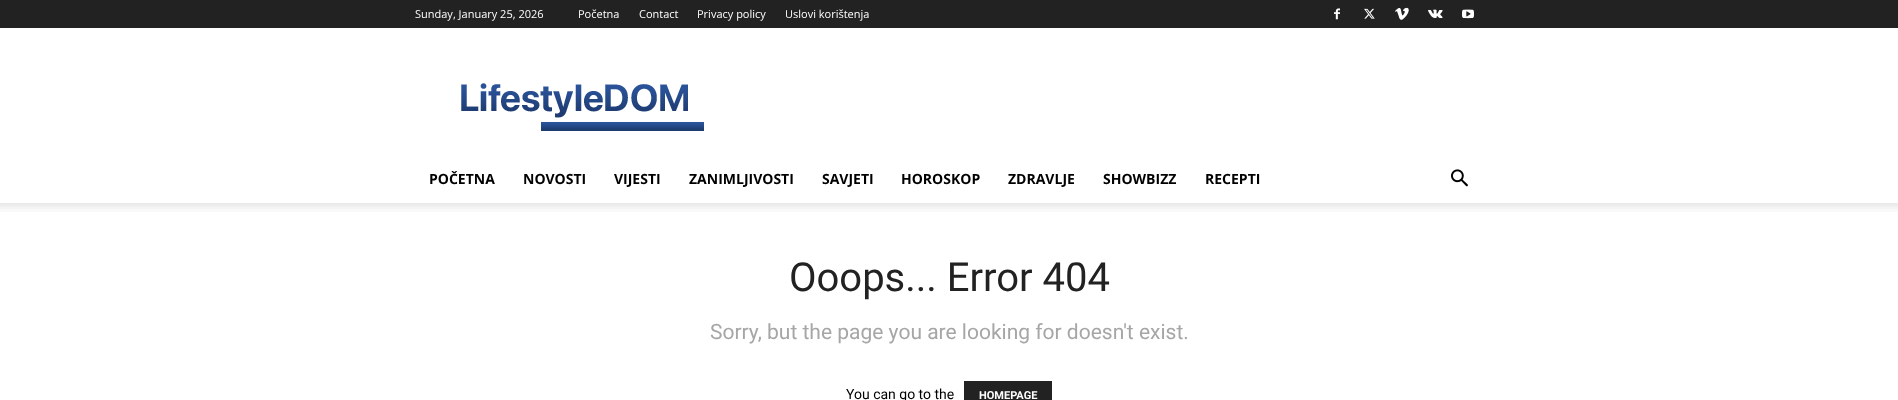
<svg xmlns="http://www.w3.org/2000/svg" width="1898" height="400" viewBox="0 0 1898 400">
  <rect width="100%" height="100%" fill="rgb(255,255,255)"/>
  <rect x="0" y="0" width="1898" height="28" fill="rgb(34,34,34)"/>
  <g font-family="Open Sans" font-size="11" fill="rgb(255,255,255)">
    <text x="415" y="18">Sunday, January 25, 2026</text>
    <text x="578" y="18">Početna</text>
    <text x="639" y="18">Contact</text>
    <text x="697" y="18">Privacy policy</text>
    <text x="785" y="18">Uslovi korištenja</text>
  </g>
  <image x="1334" y="8" width="6" height="12" href="pic1.png"/>
  <image x="1364" y="8" width="11" height="11" href="pic2.png"/>
  <image x="1395" y="7" width="14" height="13" href="pic3.png"/>
  <image x="1428" y="9" width="15" height="10" href="pic4.png"/>
  <image x="1462" y="9" width="12" height="10" href="pic5.png"/>
  <image x="461" y="83" width="243" height="48" href="pic6.png"/>
  <g font-family="Open Sans" font-size="14" font-weight="bold" fill="rgb(0,0,0)">
    <text x="429" y="184">POČETNA</text>
    <text x="523" y="184">NOVOSTI</text>
    <text x="614" y="184">VIJESTI</text>
    <text x="689" y="184">ZANIMLJIVOSTI</text>
    <text x="822" y="184">SAVJETI</text>
    <text x="901" y="184">HOROSKOP</text>
    <text x="1008" y="184">ZDRAVLJE</text>
    <text x="1103" y="184">SHOWBIZZ</text>
    <text x="1205" y="184">RECEPTI</text>
  </g>
  <image x="1451" y="169" width="17" height="18" href="pic7.png"/>
  <image x="0" y="203" width="1898" height="9" href="pic8.png"/>
  <text x="789" y="291" font-family="Roboto" font-size="40" fill="rgb(34,34,34)">Ooops... Error 404</text>
  <text x="710" y="339" font-family="Roboto" font-size="21" fill="rgb(166,166,166)">Sorry, but the page you are looking for doesn't exist.</text>
  <text x="846" y="399" font-family="Roboto" font-size="14" fill="rgb(0,0,0)">You can go to the</text>
  <rect x="964" y="381" width="88" height="19" fill="rgb(34,34,34)"/>
  <text x="979" y="399" font-family="Roboto" font-size="11" font-weight="bold" fill="rgb(255,255,255)">HOMEPAGE</text>
</svg>
